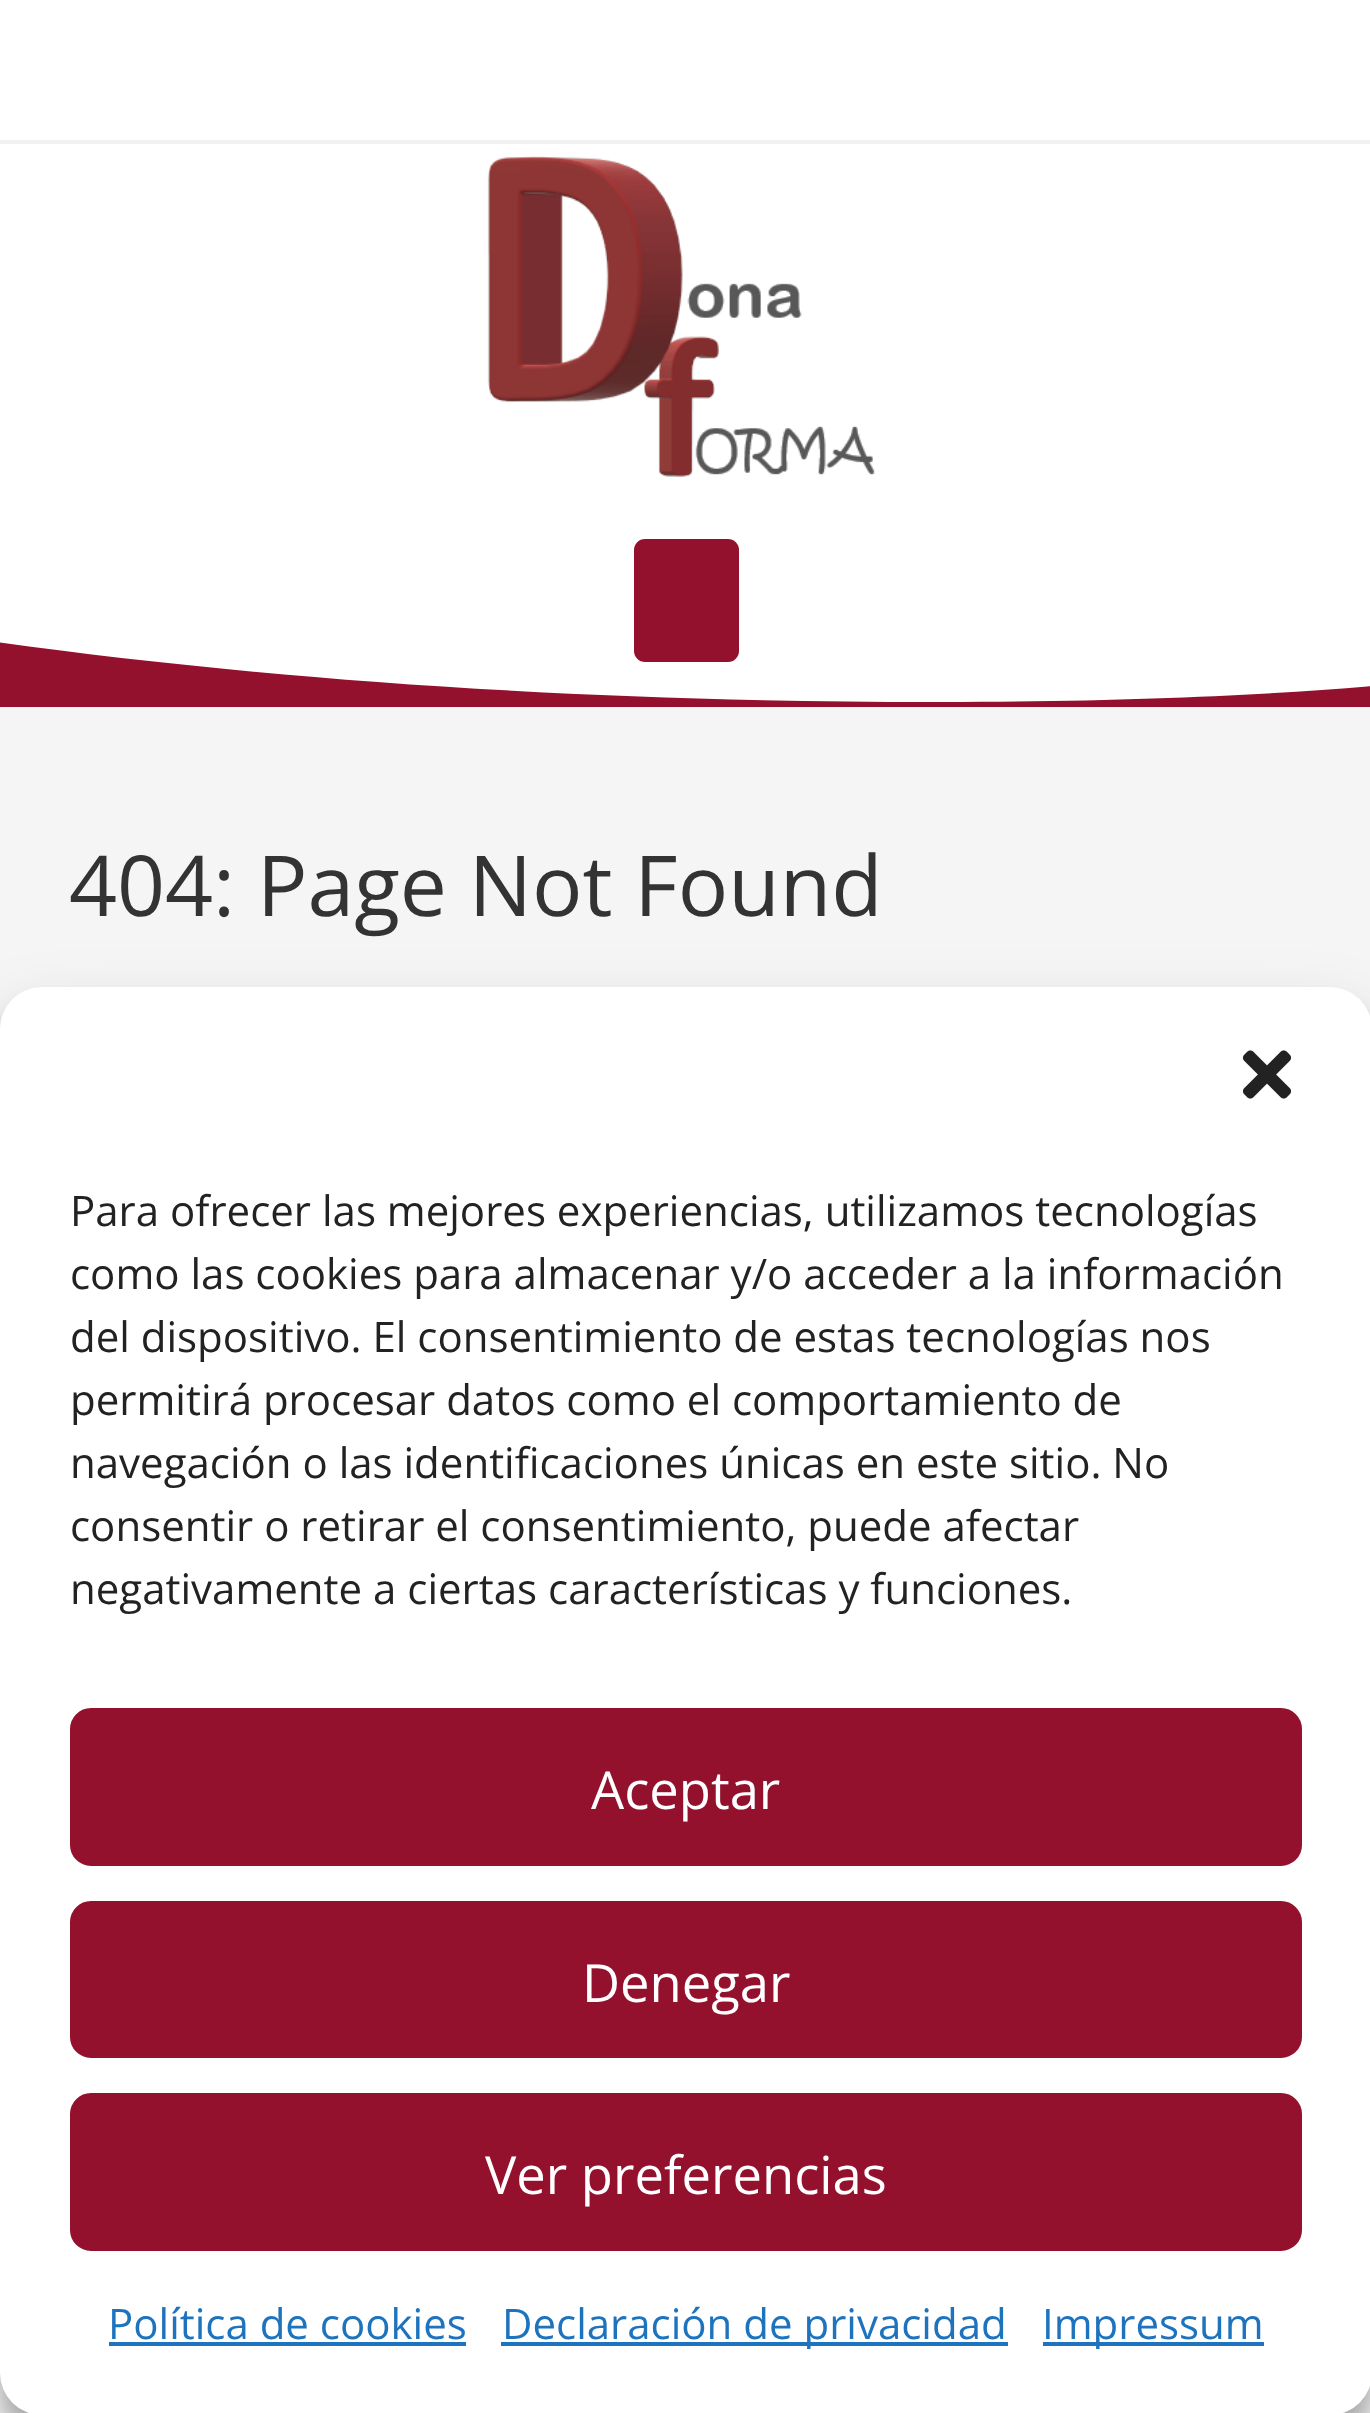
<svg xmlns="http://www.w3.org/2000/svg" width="1370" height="2413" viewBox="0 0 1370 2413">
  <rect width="100%" height="100%" fill="rgb(255,255,255)"/>
  <rect x="0" y="140" width="1370" height="4" fill="rgb(241,241,241)"/>
  <rect x="0" y="707" width="1370" height="1" fill="rgb(241,241,241)"/>
  <image x="487" y="156" width="388" height="321" href="pic1.png"/>
  <path d="M943 702C107 703-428 574-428 542V707H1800V542C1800 574 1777 700 943 702Z" fill="rgb(147,17,45)"/>
  <rect x="634" y="539" width="105" height="123" rx="11" fill="rgb(147,17,45)"/>
  <rect x="0" y="708" width="1370" height="321" fill="rgb(245,245,245)"/>
  <text x="69" y="916" font-family="Open Sans" font-size="84" fill="rgb(51,51,51)">404: Page Not Found</text>
  <rect x="0" y="1008" width="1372" height="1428" rx="42" fill="rgba(0,0,0,0.23)" filter="blur(10.5px)"/>
  <rect x="0" y="1022" width="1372" height="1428" rx="42" fill="rgba(0,0,0,0.19)" filter="blur(35px)"/>
  <rect x="0" y="987" width="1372" height="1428" rx="42" fill="rgb(255,255,255)"/>
  <image x="1242" y="1050" width="50" height="49" href="pic2.png"/>
  <g font-family="Open Sans" font-size="42" fill="rgb(34,34,34)">
    <text>
      <tspan x="70" y="1226">Para ofrecer las mejores experiencias, utilizamos tecnologías</tspan>
      <tspan x="70" y="1289">como las cookies para almacenar y/o acceder a la información</tspan>
      <tspan x="70" y="1352">del dispositivo. El consentimiento de estas tecnologías nos</tspan>
      <tspan x="70" y="1415">permitirá procesar datos como el comportamiento de</tspan>
      <tspan x="70" y="1478">navegación o las identificaciones únicas en este sitio. No</tspan>
      <tspan x="70" y="1541">consentir o retirar el consentimiento, puede afectar</tspan>
      <tspan x="70" y="1604">negativamente a ciertas características y funciones.</tspan>
    </text>
  </g>
  <rect x="72" y="1710" width="1228" height="154" rx="19" fill="rgb(147,17,45)" stroke="rgb(147,17,45)" stroke-width="4"/>
  <text x="591" y="1809" font-family="Open Sans" font-size="52.5" fill="rgb(255,255,255)">Aceptar</text>
  <rect x="72" y="1903" width="1228" height="153" rx="19" fill="rgb(147,17,45)" stroke="rgb(147,17,45)" stroke-width="4"/>
  <text x="582" y="2002" font-family="Open Sans" font-size="52.5" fill="rgb(255,255,255)">Denegar</text>
  <rect x="72" y="2095" width="1228" height="154" rx="19" fill="rgb(147,17,45)" stroke="rgb(147,17,45)" stroke-width="4"/>
  <text x="485" y="2194" font-family="Open Sans" font-size="52.5" fill="rgb(255,255,255)">Ver preferencias</text>
  <text x="108" y="2339" font-family="Open Sans" font-size="42" fill="rgb(30,115,190)">Política de cookies</text>
  <rect x="109" y="2342" width="357" height="4" fill="rgb(30,115,190)"/>
  <rect x="501" y="2342" width="507" height="4" fill="rgb(30,115,190)"/>
  <text x="502" y="2339" font-family="Open Sans" font-size="42" fill="rgb(30,115,190)">Declaración de privacidad</text>
  <rect x="1043" y="2342" width="221" height="4" fill="rgb(30,115,190)"/>
  <text x="1042" y="2339" font-family="Open Sans" font-size="42" fill="rgb(30,115,190)">Impressum</text>
</svg>
